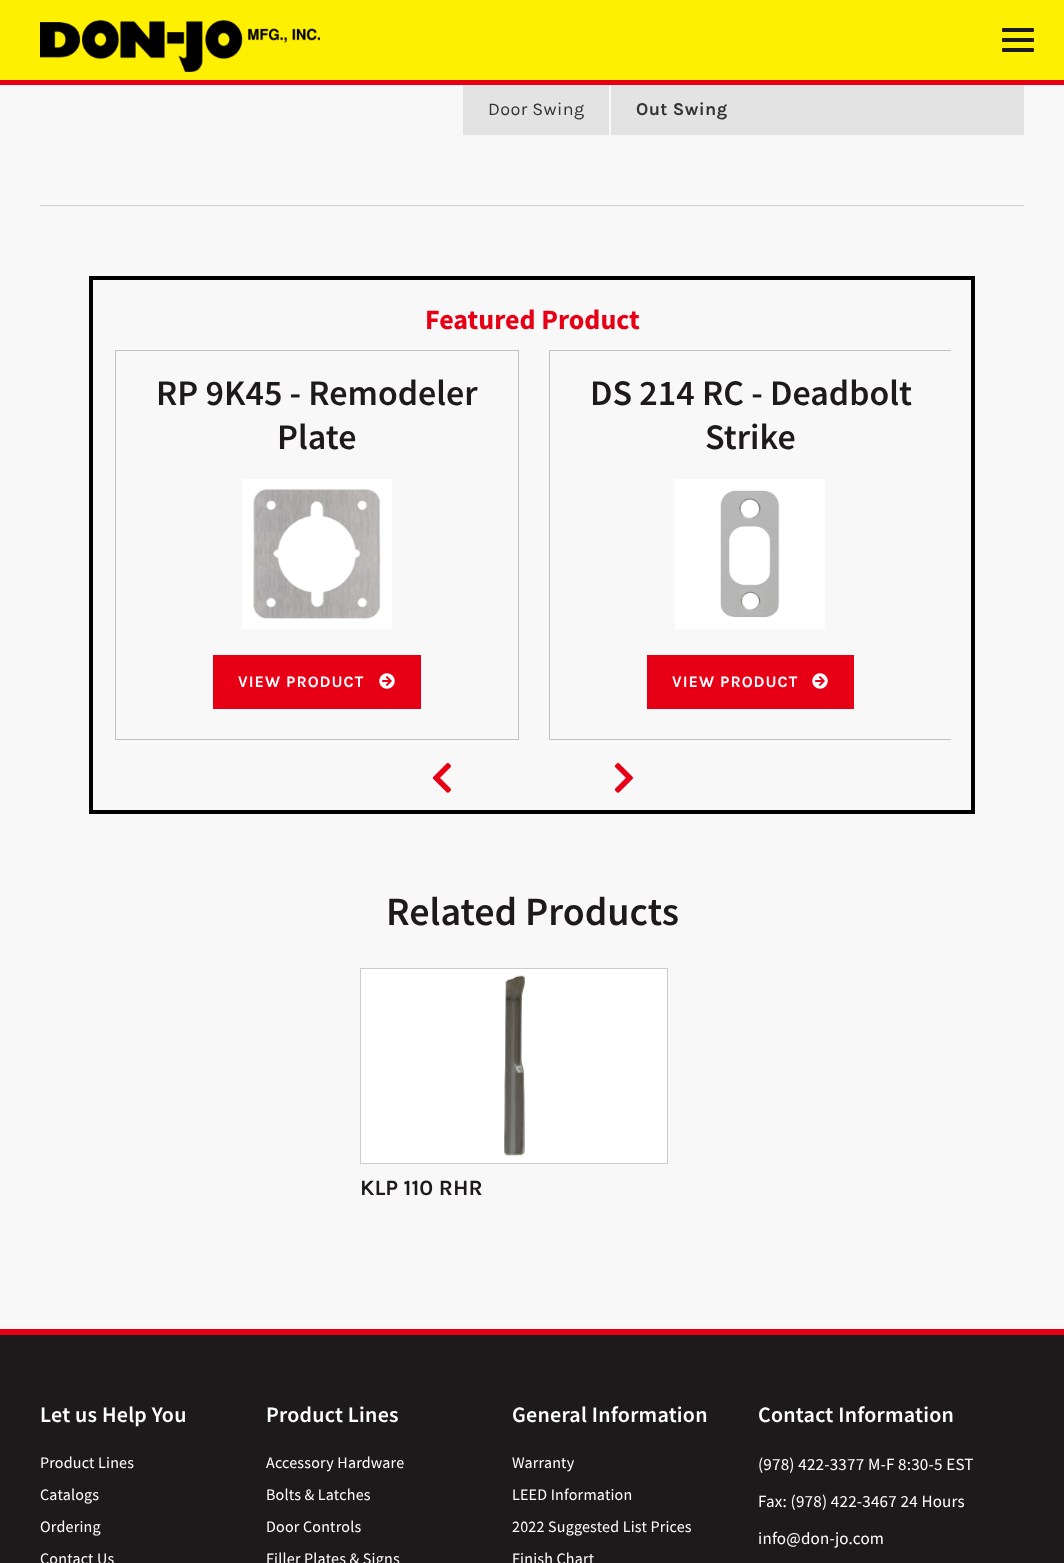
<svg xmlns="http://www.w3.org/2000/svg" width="1064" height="1563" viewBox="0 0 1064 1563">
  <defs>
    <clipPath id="clip1"><rect x="113" y="350" width="838" height="390"/></clipPath>
  </defs>
  <rect width="100%" height="100%" fill="rgb(29,26,27)"/>
  <rect x="0" y="0" width="1064" height="80" fill="rgb(255,239,0)"/>
  <image x="40" y="20" width="280" height="52" href="pic1.png"/>
  <rect x="1002" y="38" width="32" height="4" rx="1" fill="rgb(29,26,27)"/>
  <rect x="1002" y="28" width="32" height="4" rx="1" fill="rgb(29,26,27)"/>
  <rect x="1002" y="48" width="32" height="4" rx="1" fill="rgb(29,26,27)"/>
  <rect x="0" y="85" width="1064" height="1244" fill="rgb(248,248,248)"/>
  <rect x="463" y="85" width="561" height="50" fill="rgb(227,227,227)"/>
  <rect x="609" y="81" width="2" height="56" fill="rgb(248,248,248)"/>
  <rect x="0" y="80" width="1064" height="5" fill="rgb(231,0,21)"/>
  <rect x="40" y="205" width="984" height="1" fill="rgb(204,204,204)"/>
  <text x="488" y="115" font-family="Karla" font-size="18" letter-spacing="0.4" fill="rgb(51,51,51)">Door Swing</text>
  <text x="636" y="115" font-family="Karla" font-size="18" font-weight="bold" letter-spacing="0.4" fill="rgb(51,51,51)">Out Swing</text>
  <rect x="91" y="278" width="882" height="534" fill="none" stroke="rgb(0,0,0)" stroke-width="4"/>
  <text x="425" y="329" font-family="Source Sans Pro" font-size="28" font-weight="bold" fill="rgb(231,0,21)">Featured Product</text>
  <rect x="115.5" y="350.5" width="403" height="389" fill="none" stroke="rgb(196,193,193)"/>
  <g font-family="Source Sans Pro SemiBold" font-size="36" font-weight="600" fill="rgb(29,26,27)">
    <text x="156" y="405">RP 9K45 - Remodeler</text>
    <text x="277" y="449">Plate</text>
  </g>
  <image x="242" y="479" width="150" height="150" href="pic2.png"/>
  <rect x="213" y="655" width="208" height="54" fill="rgb(231,0,21)"/>
  <text x="238" y="687" font-family="Karla" font-size="16" font-weight="bold" letter-spacing="1" fill="rgb(255,255,255)">VIEW PRODUCT</text>
  <image x="379" y="673" width="16" height="16" href="pic3.png"/>
  <g clip-path="url(#clip1)">
    <rect x="549.5" y="350.5" width="402" height="389" fill="none" stroke="rgb(196,193,193)"/>
  </g>
  <g font-family="Source Sans Pro SemiBold" font-size="36" font-weight="600" fill="rgb(29,26,27)">
    <text x="590" y="405">DS 214 RC - Deadbolt</text>
    <text x="705" y="449">Strike</text>
  </g>
  <image x="675" y="479" width="150" height="150" href="pic4.png"/>
  <rect x="647" y="655" width="207" height="54" fill="rgb(231,0,21)"/>
  <text x="672" y="687" font-family="Karla" font-size="16" font-weight="bold" letter-spacing="1" fill="rgb(255,255,255)">VIEW PRODUCT</text>
  <image x="812" y="673" width="16" height="16" href="pic3.png"/>
  <image x="432" y="763" width="19" height="30" href="pic5.png"/>
  <image x="614" y="763" width="19" height="30" href="pic6.png"/>
  <text x="386" y="925" font-family="Source Sans Pro SemiBold" font-size="40" font-weight="600" fill="rgb(29,26,27)">Related Products</text>
  <rect x="360.5" y="968.5" width="307" height="195" fill="rgb(255,255,255)" stroke="rgb(204,204,204)"/>
  <image x="504" y="974" width="21" height="182" href="pic7.png"/>
  <text x="360" y="1195" font-family="Karla" font-size="22" font-weight="bold" fill="rgb(29,26,27)">KLP 110 RHR</text>
  <rect x="0" y="1329" width="1064" height="6" fill="rgb(231,0,21)"/>
  <text x="40" y="1422" font-family="Source Sans Pro SemiBold" font-size="22" font-weight="600" letter-spacing="0.25" fill="rgb(255,255,255)">Let us Help You</text>
  <g font-family="Source Sans Pro" font-size="16" letter-spacing="0.2" fill="rgb(255,255,255)">
    <text x="40" y="1468">Product Lines</text>
    <text x="40" y="1500">Catalogs</text>
    <text x="40" y="1532">Ordering</text>
    <text x="40" y="1564">Contact Us</text>
  </g>
  <text x="266" y="1422" font-family="Source Sans Pro SemiBold" font-size="22" font-weight="600" letter-spacing="0.25" fill="rgb(255,255,255)">Product Lines</text>
  <g font-family="Source Sans Pro" font-size="16" letter-spacing="0.2" fill="rgb(255,255,255)">
    <text x="266" y="1468">Accessory Hardware</text>
    <text x="266" y="1500">Bolts &amp; Latches</text>
    <text x="266" y="1532">Door Controls</text>
    <text x="266" y="1564">Filler Plates &amp; Signs</text>
  </g>
  <text x="512" y="1422" font-family="Source Sans Pro SemiBold" font-size="22" font-weight="600" letter-spacing="0.25" fill="rgb(255,255,255)">General Information</text>
  <g font-family="Source Sans Pro" font-size="16" letter-spacing="0.2" fill="rgb(255,255,255)">
    <text x="512" y="1468">Warranty</text>
    <text x="512" y="1500">LEED Information</text>
    <text x="512" y="1532">2022 Suggested List Prices</text>
    <text x="512" y="1564">Finish Chart</text>
  </g>
  <text x="758" y="1422" font-family="Source Sans Pro SemiBold" font-size="22" font-weight="600" letter-spacing="0.25" fill="rgb(255,255,255)">Contact Information</text>
  <g font-family="Source Sans Pro" font-size="17" letter-spacing="0.2" fill="rgb(255,255,255)">
    <text x="758" y="1470">(978) 422-3377 M-F 8:30-5 EST</text>
    <text x="758" y="1507">Fax: (978) 422-3467 24 Hours</text>
    <text x="758" y="1544">info@don-jo.com</text>
  </g>
</svg>
